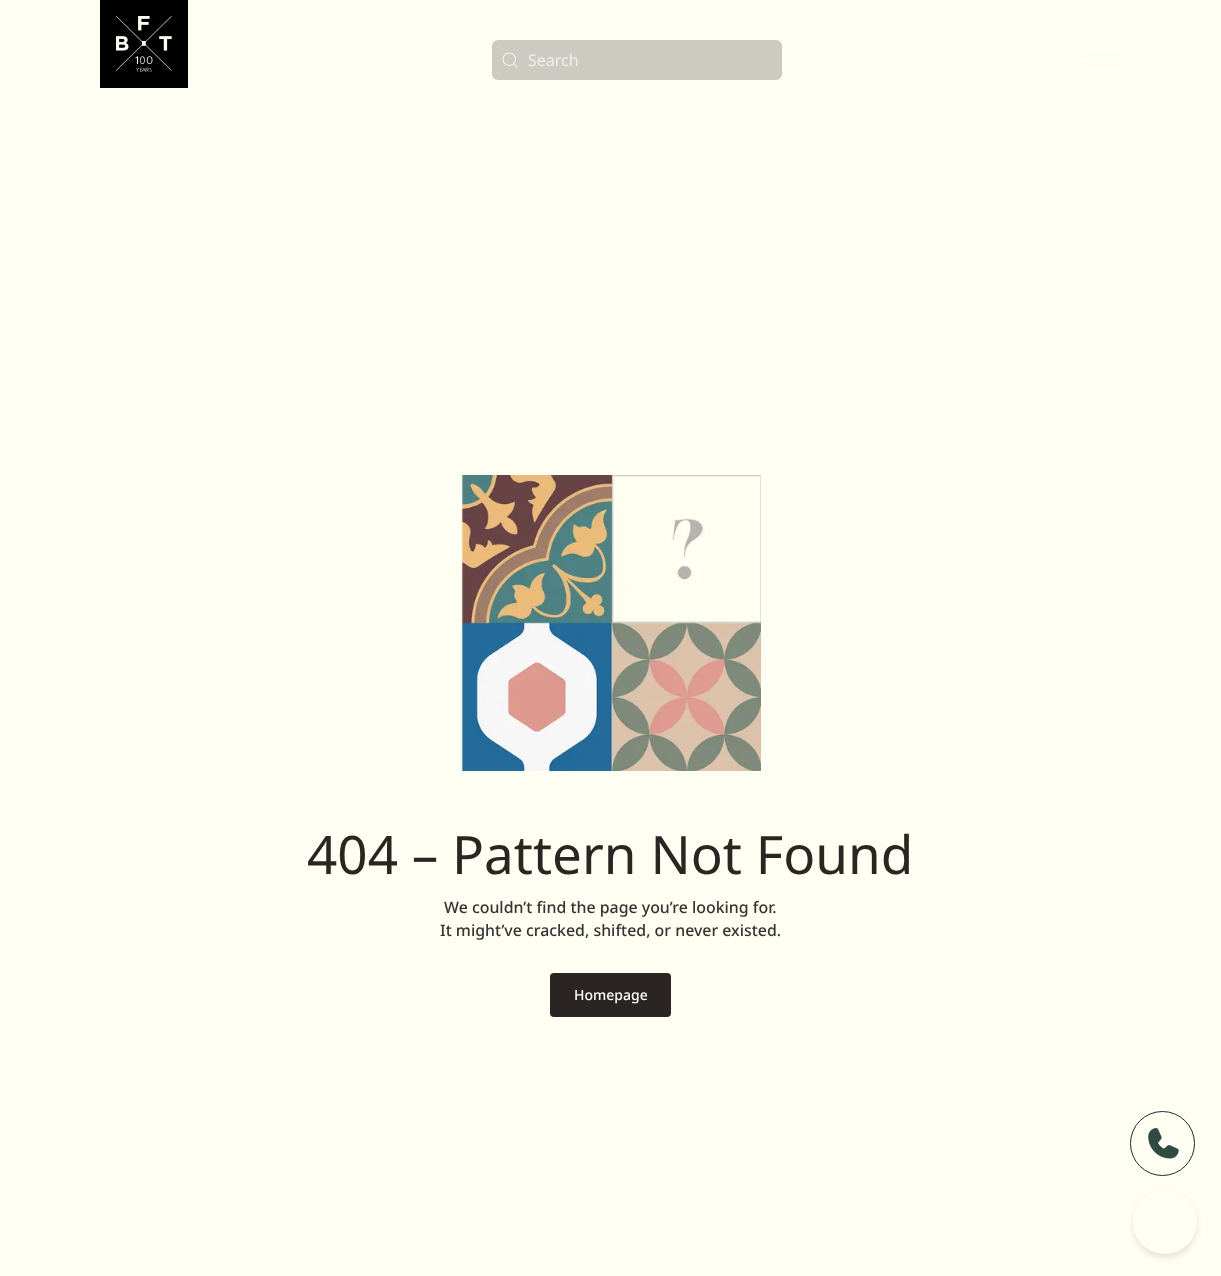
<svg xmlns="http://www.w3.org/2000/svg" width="1221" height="1276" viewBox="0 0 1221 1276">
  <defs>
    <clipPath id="clip1"><path d="M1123 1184H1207V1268H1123ZM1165 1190C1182.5 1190 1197 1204.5 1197 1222C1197 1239.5 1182.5 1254 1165 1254C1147.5 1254 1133 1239.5 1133 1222C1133 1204.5 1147.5 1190 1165 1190Z" clip-rule="evenodd"/></clipPath>
  </defs>
  <rect width="100%" height="100%" fill="rgb(255,254,242)"/>
  <rect x="100" y="0" width="88" height="88" fill="rgb(0,0,0)"/>
  <image x="116" y="16" width="56" height="56" href="pic1.png"/>
  <rect x="492" y="40" width="290" height="40" rx="6" fill="rgb(204,203,194)"/>
  <image x="502" y="52" width="16" height="16" href="pic2.png"/>
  <text x="528" y="66" font-family="Noto Sans" font-size="16" fill="rgb(240,239,237)">Search</text>
  <path d="M1081 71.5H1121" fill="none" stroke="rgb(255,255,255)" stroke-width="1.7"/>
  <rect x="1081" y="59" width="40" height="2" fill="rgb(255,255,253)"/>
  <path d="M1081 48.5H1121" fill="none" stroke="rgb(255,255,255)" stroke-width="1.7"/>
  <image x="461" y="475" width="300" height="296" href="pic3.png"/>
  <text x="307" y="874" font-family="Noto Sans" font-size="53" fill="rgb(42,37,35)">404 – Pattern Not Found</text>
  <g font-family="Noto Sans" font-size="15.9" font-weight="500" fill="rgb(51,51,51)">
    <text x="444" y="913">We couldn’t find the page you’re looking for.</text>
    <text x="440" y="936">It might’ve cracked, shifted, or never existed.</text>
  </g>
  <rect x="550" y="973" width="121" height="44" rx="4" fill="rgb(42,37,35)"/>
  <text x="574" y="1000" font-family="Noto Sans" font-size="14" font-weight="500" fill="rgb(255,255,255)">Homepage</text>
  <circle cx="1162.5" cy="1143.5" r="32" fill="none" stroke="rgb(31,41,55)"/>
  <image x="1148" y="1128" width="31" height="31" href="pic4.png"/>
  <g clip-path="url(#clip1)">
    <rect x="1133" y="1194" width="64" height="64" rx="32" fill="rgba(0,0,0,0.1)" filter="blur(3px)"/>
  </g>
</svg>
